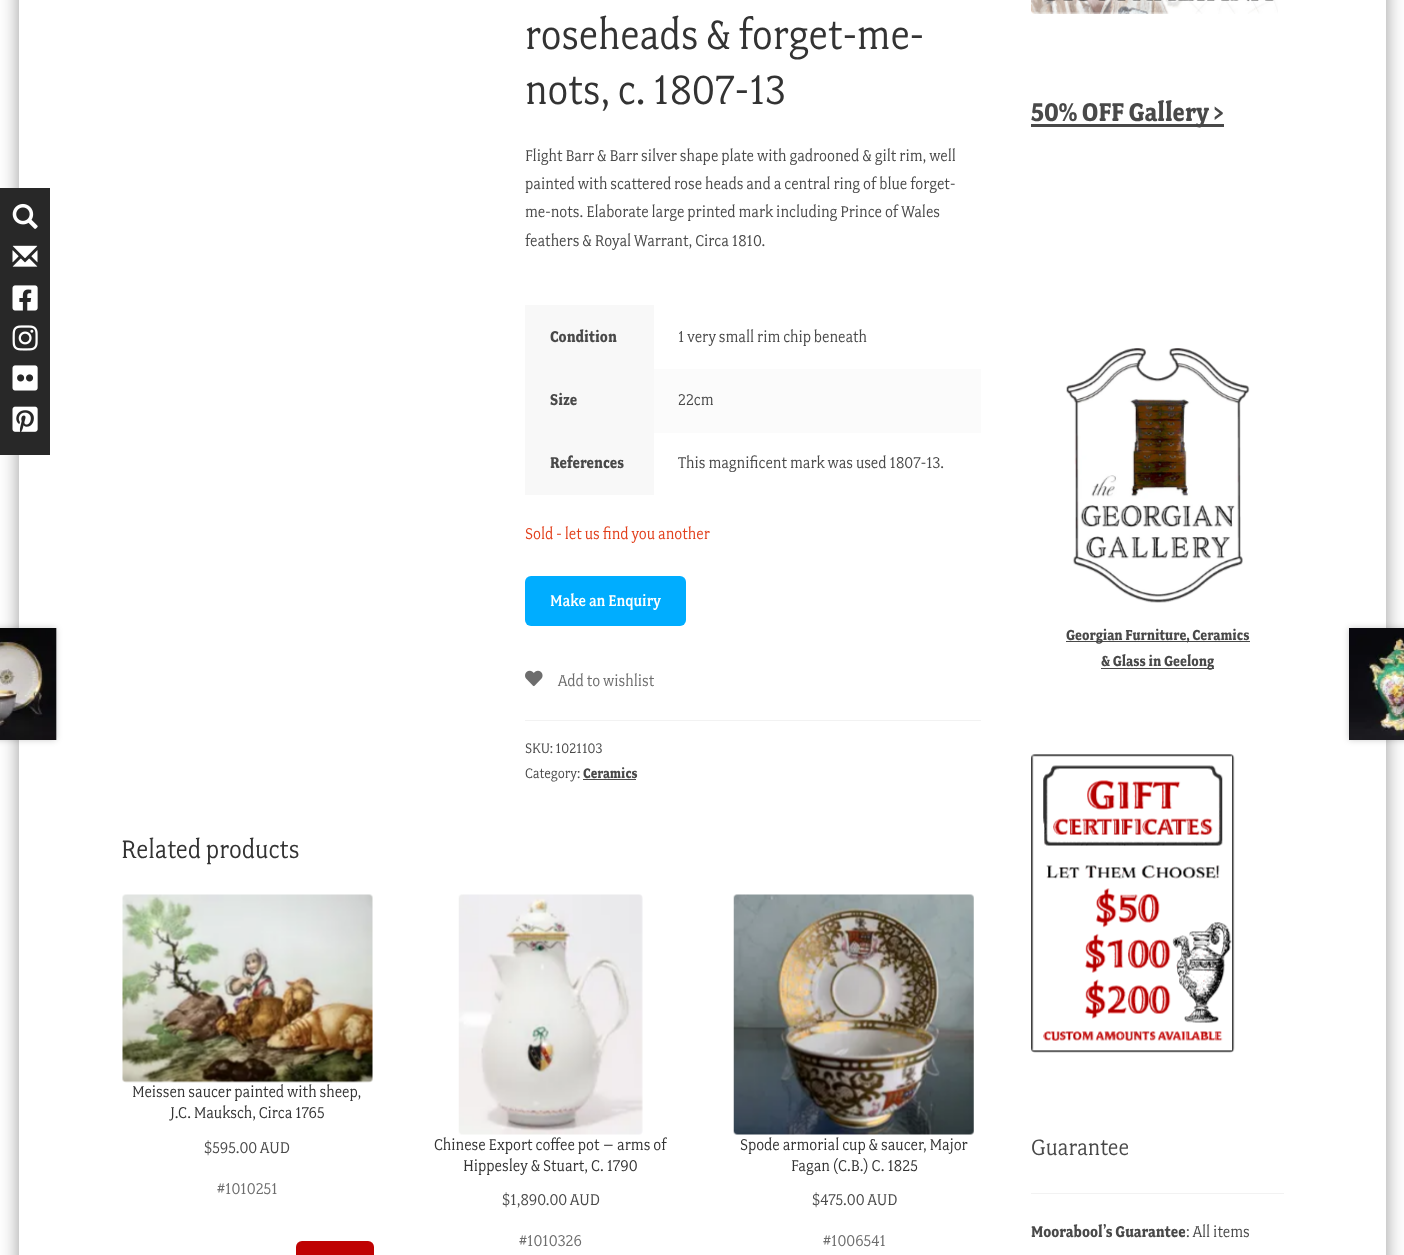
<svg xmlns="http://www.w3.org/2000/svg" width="1404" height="1255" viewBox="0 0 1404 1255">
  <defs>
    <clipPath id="clip1"><path d="M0 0H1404V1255H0ZM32-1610H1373C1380-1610 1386-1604 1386-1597V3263C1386 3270 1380 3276 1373 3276H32C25 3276 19 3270 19 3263V-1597C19-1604 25-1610 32-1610Z" clip-rule="evenodd"/></clipPath>
  </defs>
  <rect width="100%" height="100%" fill="rgb(255,255,255)"/>
  <g clip-path="url(#clip1)">
    <rect x="19" y="-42" width="1367" height="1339" rx="13" fill="rgb(153,153,153)" filter="blur(9.5px)"/>
  </g>
  <rect x="0" y="188" width="50" height="267" fill="rgb(40,40,40)"/>
  <image x="12" y="203" width="26" height="26" href="pic1.png"/>
  <image x="12" y="245" width="26" height="22" href="pic2.png"/>
  <image x="12" y="285" width="26" height="26" href="pic3.png"/>
  <image x="12" y="325" width="26" height="26" href="pic4.png"/>
  <image x="12" y="365" width="26" height="26" href="pic5.png"/>
  <image x="12" y="406" width="26" height="26" href="pic6.png"/>
  <g font-family="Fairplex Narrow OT" font-size="45.75" fill="rgb(51,51,51)">
    <text>
      <tspan x="525" y="49">roseheads &amp; forget-me-</tspan>
      <tspan x="525" y="104">nots, c. 1807-13</tspan>
    </text>
  </g>
  <g font-family="Fairplex Narrow OT" font-size="17.5" fill="rgb(73,73,73)">
    <text>
      <tspan x="525" y="161">Flight Barr &amp; Barr silver shape plate with gadrooned &amp; gilt rim, well</tspan>
      <tspan x="525" y="189">painted with scattered rose heads and a central ring of blue forget-</tspan>
      <tspan x="525" y="217">me-nots. Elaborate large printed mark including Prince of Wales</tspan>
      <tspan x="525" y="246">feathers &amp; Royal Warrant, Circa 1810.</tspan>
    </text>
  </g>
  <rect x="525" y="305" width="129" height="190" fill="rgb(248,248,248)"/>
  <text x="550" y="342" font-family="Fairplex Narrow OT" font-size="17.5" font-weight="bold" fill="rgb(73,73,73)">Condition</text>
  <text x="678" y="342" font-family="Fairplex Narrow OT" font-size="17.5" fill="rgb(73,73,73)">1 very small rim chip beneath</text>
  <text x="550" y="405" font-family="Fairplex Narrow OT" font-size="17.5" font-weight="bold" fill="rgb(73,73,73)">Size</text>
  <rect x="654" y="369" width="327" height="64" fill="rgb(251,251,251)"/>
  <text x="678" y="405" font-family="Fairplex Narrow OT" font-size="17.5" fill="rgb(73,73,73)">22cm</text>
  <text x="550" y="468" font-family="Fairplex Narrow OT" font-size="17.5" font-weight="bold" fill="rgb(73,73,73)">References</text>
  <text x="678" y="468" font-family="Fairplex Narrow OT" font-size="17.5" fill="rgb(73,73,73)">This magnificent mark was used 1807-13.</text>
  <text x="525" y="539" font-family="Fairplex Narrow OT" font-size="17.5" fill="rgb(226,64,28)">Sold - let us find you another</text>
  <rect x="525" y="576" width="161" height="50" rx="6" fill="rgb(0,173,255)"/>
  <text x="550" y="606" font-family="Fairplex Narrow OT" font-size="17.5" font-weight="500" fill="rgb(255,255,255)">Make an Enquiry</text>
  <image x="525" y="670" width="18" height="17" href="pic7.png"/>
  <text x="558" y="686" font-family="Fairplex Narrow OT" font-size="17.5" fill="rgb(109,109,109)">Add to wishlist</text>
  <rect x="525" y="720" width="456" height="1" fill="rgb(242,242,242)"/>
  <g font-family="Fairplex Narrow OT" font-size="15.5" fill="rgb(73,73,73)">
    <text>
      <tspan x="525" y="753">SKU: 1021103</tspan>
      <tspan x="525" y="778">Category:</tspan>
    </text>
  </g>
  <text x="583" y="778" font-family="Fairplex Narrow OT" font-size="15.5" font-weight="bold" fill="rgb(73,73,73)">Ceramics</text>
  <rect x="583" y="779" width="53" height="1" fill="rgb(73,73,73)"/>
  <rect x="-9" y="628" width="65" height="112" fill="rgba(0,0,0,0.2)" filter="blur(3px)"/>
  <image x="0" y="628" width="57" height="112" href="pic8.png"/>
  <rect x="1349" y="628" width="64" height="112" fill="rgba(0,0,0,0.2)" filter="blur(3px)"/>
  <image x="1349" y="628" width="55" height="112" href="pic9.png"/>
  <text x="121" y="858" font-family="Fairplex Narrow OT" font-size="28.25" fill="rgb(51,51,51)">Related products</text>
  <image x="122" y="894" width="251" height="189" href="pic10.png"/>
  <g font-family="Fairplex Narrow OT" font-size="17.5" fill="rgb(51,51,51)">
    <text x="132" y="1097">Meissen saucer painted with sheep,</text>
    <text x="170" y="1118">J.C. Mauksch, Circa 1765</text>
  </g>
  <text x="204" y="1153" font-family="Fairplex Narrow OT" font-size="17.5" fill="rgb(73,73,73)">$595.00 AUD</text>
  <text x="217" y="1194" font-family="Fairplex Narrow OT" font-size="17.5" fill="rgb(109,109,109)">#1010251</text>
  <rect x="296" y="1241" width="78" height="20" rx="6" fill="rgb(191,2,2)"/>
  <image x="458" y="894" width="185" height="241" href="pic11.png"/>
  <g font-family="Fairplex Narrow OT" font-size="17.5" fill="rgb(51,51,51)">
    <text x="434" y="1150">Chinese Export coffee pot – arms of</text>
    <text x="463" y="1171">Hippesley &amp; Stuart, C. 1790</text>
  </g>
  <text x="502" y="1205" font-family="Fairplex Narrow OT" font-size="17.5" fill="rgb(73,73,73)">$1,890.00 AUD</text>
  <text x="519" y="1246" font-family="Fairplex Narrow OT" font-size="17.5" fill="rgb(109,109,109)">#1010326</text>
  <image x="733" y="894" width="241" height="241" href="pic12.png"/>
  <g font-family="Fairplex Narrow OT" font-size="17.5" fill="rgb(51,51,51)">
    <text x="740" y="1150">Spode armorial cup &amp; saucer, Major</text>
    <text x="791" y="1171">Fagan (C.B.) C. 1825</text>
  </g>
  <text x="812" y="1205" font-family="Fairplex Narrow OT" font-size="17.5" fill="rgb(73,73,73)">$475.00 AUD</text>
  <text x="823" y="1246" font-family="Fairplex Narrow OT" font-size="17.5" fill="rgb(109,109,109)">#1006541</text>
  <image x="1031" y="0" width="247" height="14" href="pic13.png"/>
  <rect x="1031" y="124" width="193" height="3" fill="rgb(73,73,73)"/>
  <text x="1031" y="121" font-family="Fairplex Narrow OT" font-size="28.75" font-weight="bold" fill="rgb(73,73,73)">50% OFF Gallery &gt;</text>
  <image x="1066" y="348" width="184" height="255" href="pic14.png"/>
  <rect x="1066" y="641" width="184" height="1" fill="rgb(73,73,73)"/>
  <text x="1066" y="640" font-family="Fairplex Narrow OT" font-size="16.25" font-weight="bold" fill="rgb(73,73,73)">Georgian Furniture, Ceramics</text>
  <rect x="1101" y="668" width="113" height="1" fill="rgb(73,73,73)"/>
  <text x="1101" y="666" font-family="Fairplex Narrow OT" font-size="16.25" font-weight="bold" fill="rgb(73,73,73)">&amp; Glass in Geelong</text>
  <image x="1031" y="754" width="204" height="299" href="pic15.png"/>
  <rect x="1031" y="1193" width="253" height="1" fill="rgb(242,242,242)"/>
  <text x="1031" y="1155" font-family="Fairplex Narrow OT" font-size="25" fill="rgb(73,73,73)">Guarantee</text>
  <text x="1031" y="1237" font-family="Fairplex Narrow OT" font-size="17.5" font-weight="bold" fill="rgb(73,73,73)">Moorabool’s Guarantee</text>
  <text x="1186" y="1237" font-family="Fairplex Narrow OT" font-size="17.5" fill="rgb(73,73,73)">: All items</text>
</svg>
